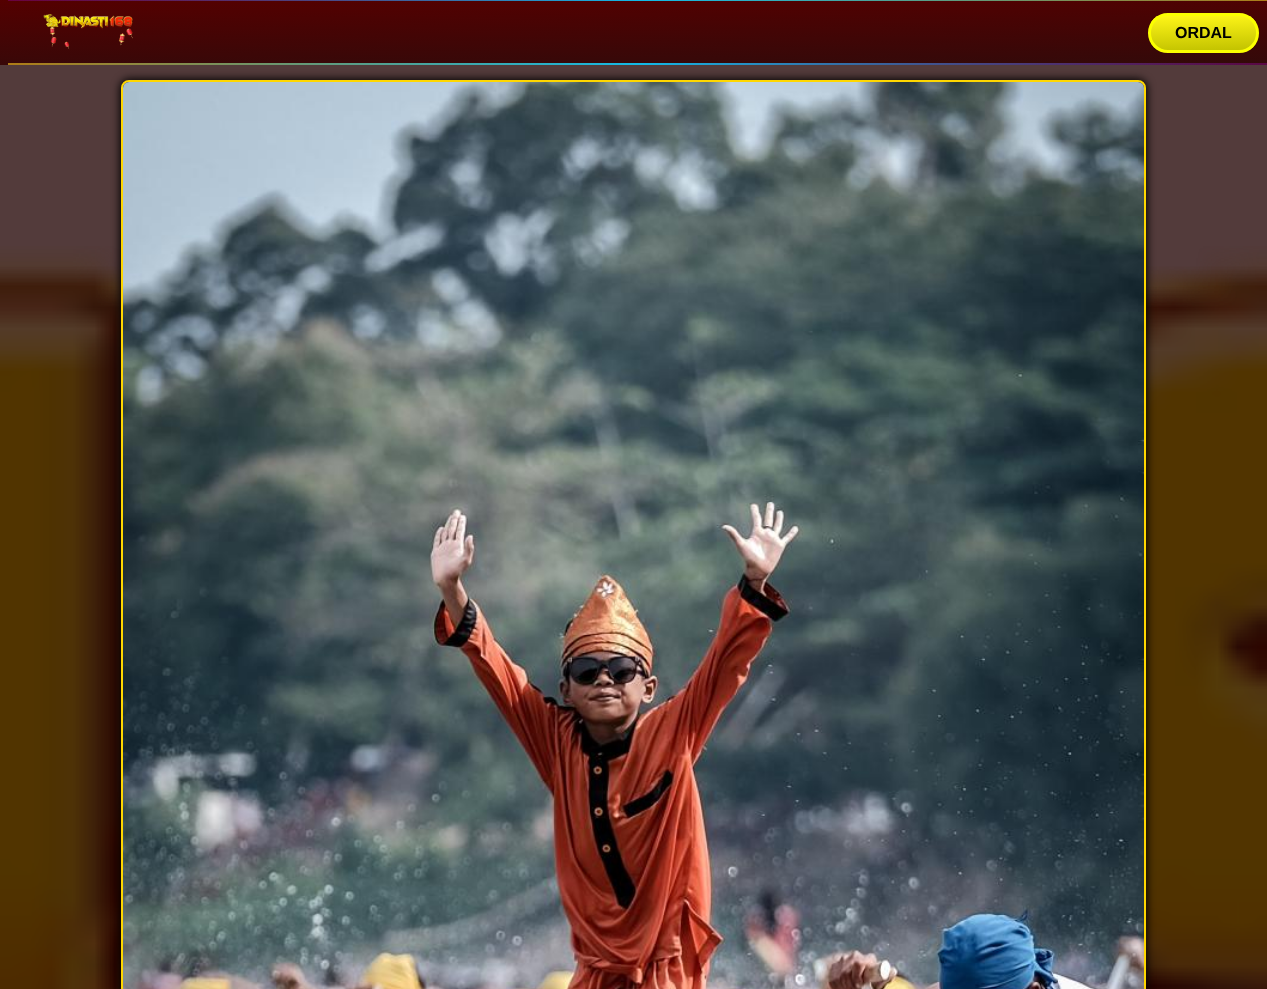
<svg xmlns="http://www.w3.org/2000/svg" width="1267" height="989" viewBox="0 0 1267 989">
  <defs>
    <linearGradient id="g1" gradientUnits="userSpaceOnUse" x1="633" y1="-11" x2="634" y2="76"><stop offset="0" stop-color="rgb(86,0,0)"/><stop offset="1" stop-color="rgb(49,10,10)"/></linearGradient>
    <linearGradient id="g2" gradientUnits="userSpaceOnUse" x1="8" y1="0.5" x2="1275" y2="0.5"><stop offset="0" stop-color="rgb(125,4,118)" stop-opacity="0.53"/><stop offset="0.5" stop-color="rgb(18,186,231)"/><stop offset="1" stop-color="rgb(174,124,22)"/></linearGradient>
    <clipPath id="clip1"><rect x="1148" y="13" width="111" height="40" rx="20"/></clipPath>
    <linearGradient id="g3" gradientUnits="userSpaceOnUse" x1="1203" y1="15" x2="1204" y2="51"><stop offset="0" stop-color="rgb(254,245,24)"/><stop offset="1" stop-color="rgb(195,195,0)"/></linearGradient>
    <linearGradient id="g4" gradientUnits="userSpaceOnUse" x1="8" y1="64" x2="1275" y2="64"><stop offset="0" stop-color="rgb(174,124,22)"/><stop offset="0.5" stop-color="rgb(18,186,231)"/><stop offset="1" stop-color="rgb(125,4,118)" stop-opacity="0.53"/></linearGradient>
  </defs>
  <rect width="100%" height="100%" fill="rgb(83,59,59)"/>
  <image x="0" y="246" width="1267" height="743" href="pic1.png"/>
  <rect x="0" y="0" width="1267" height="65" fill="url(#g1)"/>
  <rect x="8" y="0" width="1259" height="1" fill="url(#g2)"/>
  <image x="43" y="14" width="90" height="36" href="pic2.png"/>
  <g clip-path="url(#clip1)">
    <rect x="1151" y="16" width="105" height="34" fill="url(#g3)"/>
  </g>
  <rect x="1149.5" y="14.5" width="108" height="37" rx="18.5" fill="none" stroke="rgb(251,255,0)" stroke-width="3"/>
  <text x="1175" y="38" font-family="Liberation Sans" font-size="16" font-weight="bold" fill="rgb(0,0,0)">ORDAL</text>
  <rect x="8" y="63" width="1259" height="2" fill="url(#g4)"/>
  <rect x="120" y="79" width="1027" height="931" rx="9" fill="rgb(0,0,0)" filter="blur(4px)"/>
  <rect x="122" y="81" width="1023" height="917" rx="7" fill="none" stroke="rgb(255,215,0)" stroke-width="2"/>
  <image x="123" y="82" width="1021" height="907" href="pic3.png"/>
</svg>
